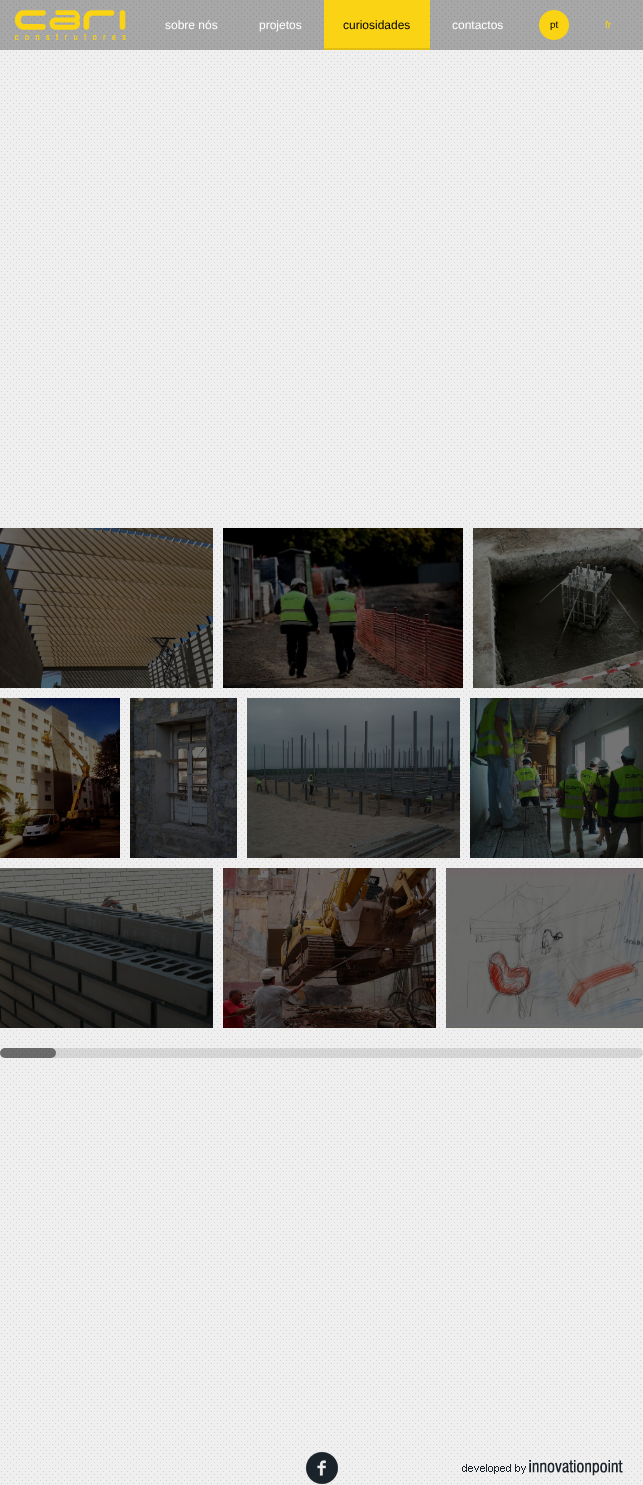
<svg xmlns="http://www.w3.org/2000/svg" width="643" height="1485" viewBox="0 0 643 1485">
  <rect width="100%" height="100%" fill="rgb(239,239,239)"/>
  <image x="1" y="1" width="640" height="1483" href="pic1.png"/>
  <rect x="0" y="0" width="643" height="50" fill="rgba(0,0,0,0.3)"/>
  <rect x="0" y="528" width="213" height="160" fill="rgb(0,0,0)"/>
  <image x="0" y="528" width="213" height="160" href="pic2.png"/>
  <rect x="223" y="528" width="240" height="160" fill="rgb(0,0,0)"/>
  <image x="223" y="528" width="240" height="160" href="pic3.png"/>
  <rect x="473" y="528" width="170" height="160" fill="rgb(0,0,0)"/>
  <image x="473" y="528" width="170" height="160" href="pic4.png"/>
  <rect x="0" y="698" width="120" height="160" fill="rgb(0,0,0)"/>
  <image x="0" y="698" width="120" height="160" href="pic5.png"/>
  <rect x="130" y="698" width="107" height="160" fill="rgb(0,0,0)"/>
  <image x="130" y="698" width="107" height="160" href="pic6.png"/>
  <rect x="247" y="698" width="213" height="160" fill="rgb(0,0,0)"/>
  <image x="247" y="698" width="213" height="160" href="pic7.png"/>
  <rect x="470" y="698" width="173" height="160" fill="rgb(0,0,0)"/>
  <image x="470" y="698" width="173" height="160" href="pic8.png"/>
  <rect x="0" y="868" width="213" height="160" fill="rgb(0,0,0)"/>
  <image x="0" y="868" width="213" height="160" href="pic9.png"/>
  <rect x="223" y="868" width="213" height="160" fill="rgb(0,0,0)"/>
  <image x="223" y="868" width="213" height="160" href="pic10.png"/>
  <rect x="446" y="868" width="197" height="160" fill="rgb(0,0,0)"/>
  <image x="446" y="868" width="197" height="160" href="pic11.png"/>
  <rect x="0" y="1048" width="643" height="10" rx="5" fill="rgba(0,0,0,0.1)"/>
  <rect x="0" y="1048" width="56" height="10" rx="5" fill="rgba(0,0,0,0.5)"/>
  <image x="15" y="10" width="111" height="30" href="pic12.png"/>
  <g font-family="Liberation Sans" font-size="12" fill="rgb(255,255,255)">
    <text x="165" y="29">sobre nós</text>
    <text x="259" y="29">projetos</text>
  </g>
  <rect x="324" y="0" width="106" height="48" fill="rgb(250,211,20)"/>
  <rect x="324" y="48" width="106" height="2" fill="rgb(225,189,17)"/>
  <text x="343" y="29" font-family="Liberation Sans" font-size="12" fill="rgb(0,0,0)">curiosidades</text>
  <text x="452" y="29" font-family="Liberation Sans" font-size="12" fill="rgb(255,255,255)">contactos</text>
  <image x="539" y="10" width="30" height="30" href="pic13.png"/>
  <text x="550" y="28" font-family="Liberation Sans" font-size="10" fill="rgb(0,0,0)">pt</text>
  <text x="605" y="28" font-family="Liberation Sans" font-size="10" fill="rgb(250,211,20)">fr</text>
  <image x="306" y="1452" width="32" height="32" href="pic14.png"/>
  <image x="462" y="1460" width="161" height="16" href="pic15.png"/>
</svg>
